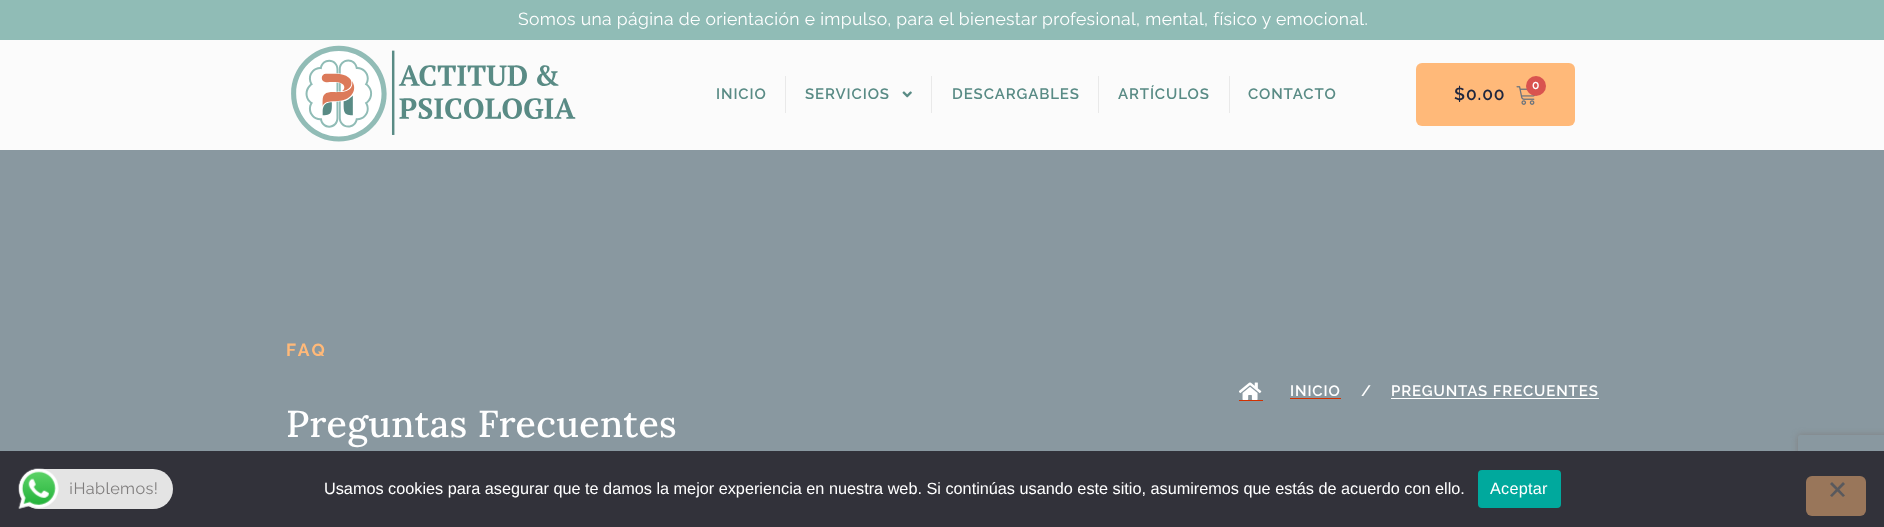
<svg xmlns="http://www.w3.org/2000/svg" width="1884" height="527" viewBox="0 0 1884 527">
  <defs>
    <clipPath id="clip1"><path d="M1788 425H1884V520H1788ZM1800.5 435H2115.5C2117 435 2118 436 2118 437.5V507.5C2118 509 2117 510 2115.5 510H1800.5C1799 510 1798 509 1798 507.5V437.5C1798 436 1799 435 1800.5 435Z" clip-rule="evenodd"/></clipPath>
  </defs>
  <rect width="100%" height="100%" fill="rgb(255,255,255)"/>
  <rect x="0" y="0" width="1884" height="40" fill="rgb(144,188,182)"/>
  <text x="518" y="25" font-family="Raleway" font-size="17.5" letter-spacing="0.38" fill="rgb(255,255,255)">Somos una página de orientación e impulso, para el bienestar profesional, mental, físico y emocional.</text>
  <rect x="0" y="40" width="1884" height="110" fill="rgb(251,251,251)"/>
  <image x="291" y="45" width="285" height="97" href="pic1.png"/>
  <text x="716" y="99" font-family="Raleway" font-size="15" font-weight="600" letter-spacing="0.9" fill="rgb(89,139,133)">INICIO</text>
  <rect x="785" y="76" width="1" height="37" fill="rgb(233,233,233)"/>
  <text x="805" y="99" font-family="Raleway" font-size="15" font-weight="600" letter-spacing="0.9" fill="rgb(89,139,133)">SERVICIOS</text>
  <image x="902" y="91" width="10" height="7" href="pic2.png"/>
  <rect x="931" y="76" width="1" height="37" fill="rgb(233,233,233)"/>
  <text x="952" y="99" font-family="Raleway" font-size="15" font-weight="600" letter-spacing="0.9" fill="rgb(89,139,133)">DESCARGABLES</text>
  <rect x="1098" y="76" width="1" height="37" fill="rgb(233,233,233)"/>
  <text x="1118" y="99" font-family="Raleway" font-size="15" font-weight="600" letter-spacing="0.9" fill="rgb(89,139,133)">ARTÍCULOS</text>
  <rect x="1229" y="76" width="1" height="37" fill="rgb(233,233,233)"/>
  <text x="1248" y="99" font-family="Raleway" font-size="15" font-weight="600" letter-spacing="0.9" fill="rgb(89,139,133)">CONTACTO</text>
  <rect x="1416" y="63" width="159" height="63" rx="6" fill="rgb(255,185,121)"/>
  <text x="1454" y="100" font-family="Raleway" font-size="17.5" font-weight="600" letter-spacing="0.9" fill="rgb(31,38,62)">$0.00</text>
  <image x="1516" y="86" width="20" height="19" href="pic3.png"/>
  <circle cx="1536" cy="86" r="10" fill="rgb(217,83,79)"/>
  <text x="1532" y="89" font-family="Raleway" font-size="12" font-weight="600" letter-spacing="0.9" fill="rgb(255,255,255)">0</text>
  <rect x="0" y="150" width="1884" height="301" fill="rgba(19,49,66,0.5)"/>
  <text x="286" y="356" font-family="Raleway" font-size="17.5" font-weight="bold" letter-spacing="2.5" fill="rgb(255,185,121)">FAQ</text>
  <text x="286" y="437" font-family="Lora" font-size="37.5" font-weight="500" letter-spacing="0.38" fill="rgb(255,255,255)">Preguntas Frecuentes</text>
  <image x="1239" y="382" width="23" height="18" href="pic4.png"/>
  <rect x="1239" y="400" width="24" height="1" fill="rgb(210,49,0)"/>
  <text x="1290" y="396" font-family="Raleway" font-size="15" font-weight="600" letter-spacing="0.9" fill="rgb(255,255,255)">INICIO</text>
  <rect x="1290" y="398" width="51" height="1" fill="rgb(210,49,0)"/>
  <g font-family="Raleway" font-size="15" font-weight="600" letter-spacing="0.9" fill="rgb(255,255,255)">
    <text x="1361" y="396">/</text>
    <text x="1391" y="396">PREGUNTAS FRECUENTES</text>
  </g>
  <rect x="1391" y="398" width="208" height="1" fill="rgb(255,255,255)"/>
  <g clip-path="url(#clip1)">
    <rect x="1798" y="435" width="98" height="75" rx="2.5" fill="rgb(128,128,128)" filter="blur(3px)"/>
  </g>
  <rect x="0" y="451" width="1884" height="76" fill="rgb(50,50,58)"/>
  <rect x="19" y="469" width="154" height="40" rx="20" fill="rgb(228,228,228)"/>
  <image x="18" y="468" width="41" height="41" href="pic5.png"/>
  <text x="69" y="494" font-family="Raleway" font-size="16.25" letter-spacing="0.38" fill="rgb(127,125,125)">¡Hablemos!</text>
  <text x="324" y="494" font-family="Liberation Sans" font-size="16.25" fill="rgb(255,255,255)">Usamos cookies para asegurar que te damos la mejor experiencia en nuestra web. Si continúas usando este sitio, asumiremos que estás de acuerdo con ello.</text>
  <rect x="1478" y="470" width="83" height="38" rx="4" fill="rgb(0,169,157)"/>
  <text x="1490" y="494" font-family="Liberation Sans" font-size="16.25" letter-spacing="0.25" fill="rgb(255,255,255)">Aceptar</text>
  <rect x="1806" y="476" width="60" height="40" rx="6" fill="rgb(153,118,90)"/>
  <path d="M1843 482L1845 484L1832 497L1830 495.5Z" fill="rgb(89,89,93)"/>
  <path d="M1830 484L1832 482L1845 495.5L1843 497Z" fill="rgb(89,89,93)"/>
</svg>
